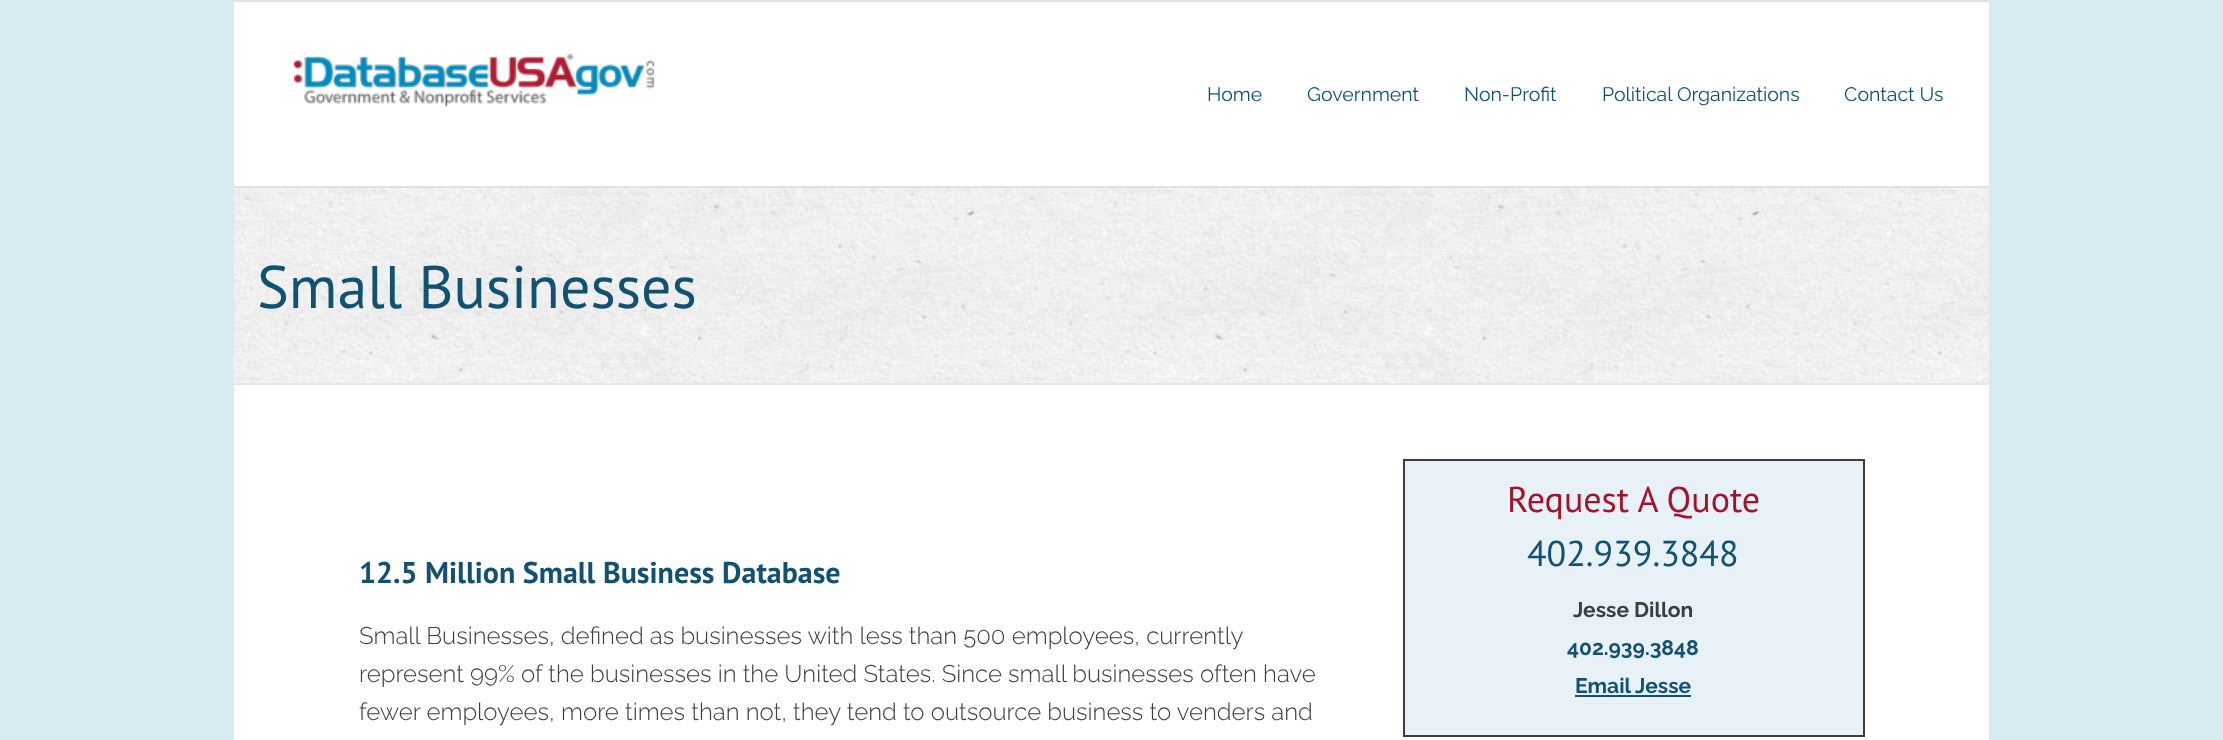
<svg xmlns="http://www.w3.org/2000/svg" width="2223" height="740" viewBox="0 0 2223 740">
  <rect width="100%" height="100%" fill="rgb(215,236,242)"/>
  <rect x="234" y="385" width="1755" height="355" fill="rgb(255,255,255)"/>
  <rect x="234" y="0" width="1755" height="2" fill="rgb(225,225,225)"/>
  <rect x="234" y="2" width="1755" height="184" fill="rgb(255,255,255)"/>
  <rect x="234" y="186" width="1755" height="2" fill="rgb(225,225,225)"/>
  <image x="294" y="54" width="360" height="53" href="pic1.png"/>
  <g font-family="Raleway" font-size="19.5" fill="rgb(17,81,114)">
    <text x="1207" y="101">Home</text>
    <text x="1307" y="101">Government</text>
    <text x="1464" y="101">Non-Profit</text>
    <text x="1602" y="101">Political Organizations</text>
    <text x="1844" y="101">Contact Us</text>
  </g>
  <image x="234" y="188" width="1755" height="195" href="pic2.png"/>
  <rect x="234" y="383" width="1755" height="2" fill="rgb(229,229,229)"/>
  <text x="257" y="308" font-family="PT Sans" font-size="60" fill="rgb(17,81,114)">Small Businesses</text>
  <text x="359" y="583" font-family="PT Sans" font-size="30" font-weight="bold" fill="rgb(17,81,114)">12.5 Million Small Business Database</text>
  <g font-family="Raleway" font-size="24" font-weight="300" fill="rgb(61,61,61)">
    <text>
      <tspan x="359" y="644">Small Businesses, defined as businesses with less than 500 employees, currently</tspan>
      <tspan x="359" y="682">represent 99% of the businesses in the United States. Since small businesses often have</tspan>
      <tspan x="359" y="720">fewer employees, more times than not, they tend to outsource business to venders and</tspan>
    </text>
  </g>
  <rect x="1404" y="460" width="460" height="276" fill="rgb(231,241,247)" stroke="rgb(61,61,61)" stroke-width="2"/>
  <text x="1507" y="512" font-family="PT Sans" font-size="36" fill="rgb(162,20,42)">Request A Quote</text>
  <text x="1527" y="566" font-family="PT Sans" font-size="36" fill="rgb(17,81,114)">402.939.3848</text>
  <text x="1573" y="617" font-family="Raleway" font-size="21" font-weight="bold" fill="rgb(61,61,61)">Jesse Dillon</text>
  <g font-family="Raleway" font-size="21" font-weight="bold" fill="rgb(17,81,114)">
    <text x="1567" y="655">402.939.3848</text>
    <text x="1575" y="693">Email Jesse</text>
  </g>
  <rect x="1575" y="695" width="116" height="2" fill="rgb(17,81,114)"/>
</svg>
